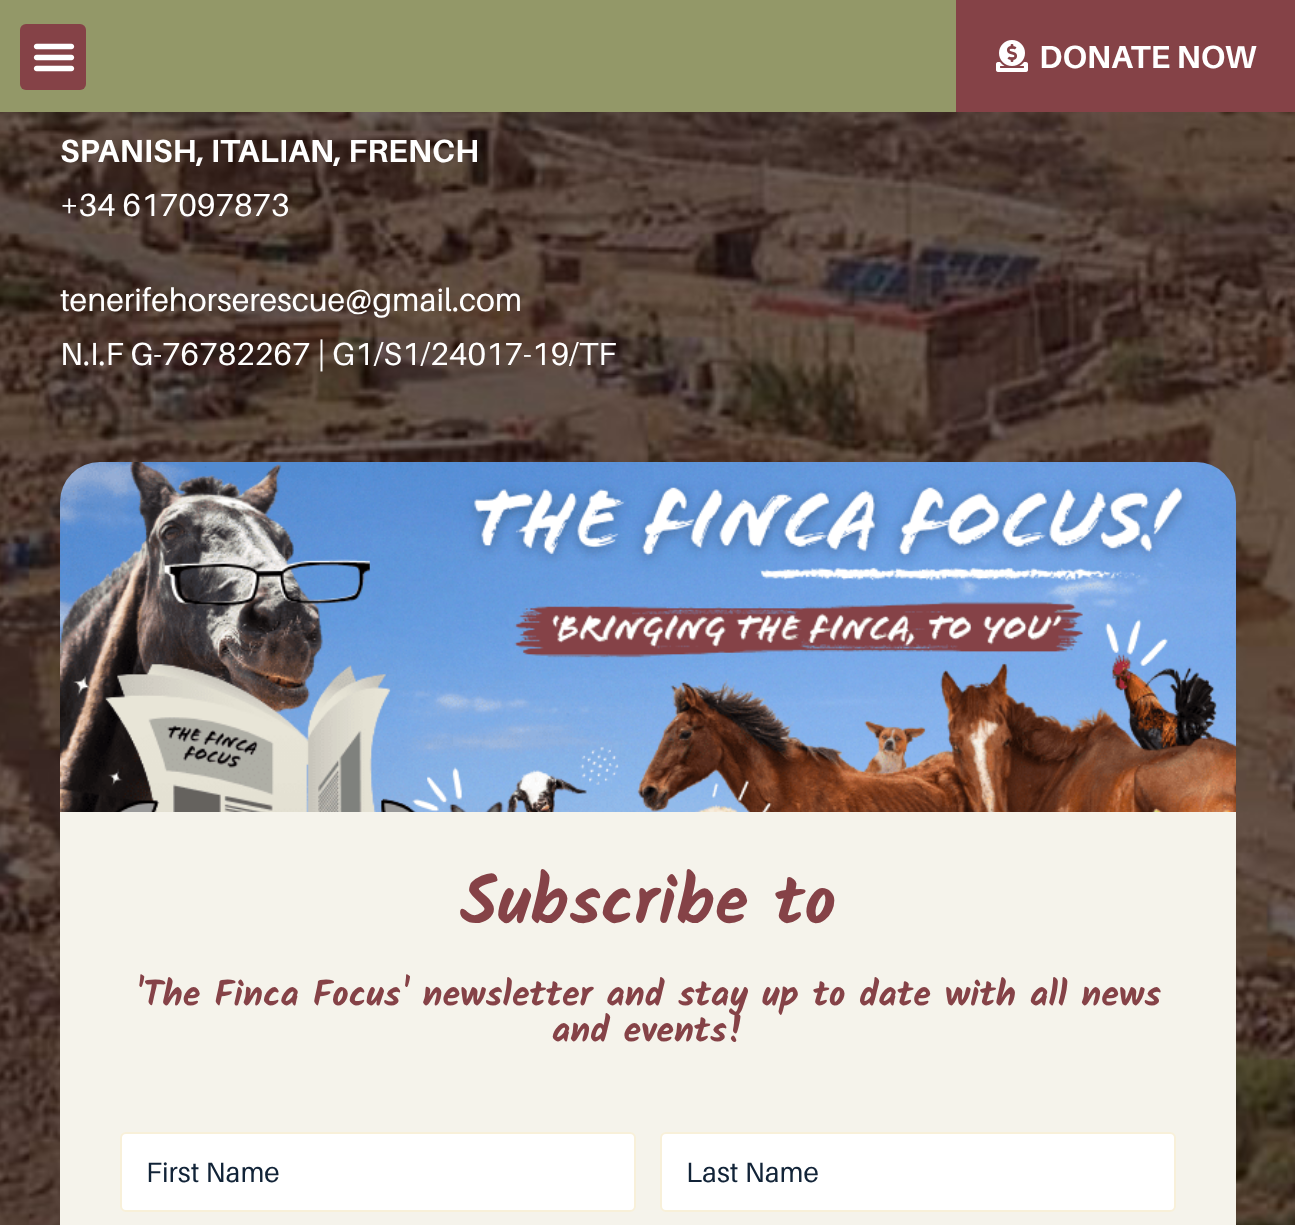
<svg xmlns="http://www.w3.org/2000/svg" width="1295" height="1225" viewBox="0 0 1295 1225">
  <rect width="100%" height="100%" fill="rgb(255,255,255)"/>
  <rect x="0" y="0" width="956" height="112" fill="rgb(147,152,104)"/>
  <rect x="20" y="24" width="66" height="66" rx="6" fill="rgb(133,66,71)"/>
  <image x="33" y="43" width="42" height="29" href="pic1.png"/>
  <rect x="956" y="0" width="339" height="112" fill="rgb(133,66,71)"/>
  <image x="996" y="40" width="32" height="32" href="pic2.png"/>
  <text x="1039" y="68" font-family="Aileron" font-size="32" font-weight="bold" fill="rgb(255,255,255)">DONATE NOW</text>
  <image x="0" y="112" width="1295" height="1113" href="pic3.png"/>
  <text x="60" y="162" font-family="Aileron" font-size="32" font-weight="bold" fill="rgb(255,255,255)">SPANISH, ITALIAN, FRENCH</text>
  <g font-family="Aileron" font-size="32" fill="rgb(255,255,255)">
    <text x="60" y="216">+34 617097873</text>
    <text>
      <tspan x="60" y="311">tenerifehorserescue@gmail.com</tspan>
      <tspan x="60" y="365">N.I.F G-76782267 | G1/S1/24017-19/TF</tspan>
    </text>
  </g>
  <rect x="60" y="462" width="1176" height="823" rx="60" fill="rgb(245,243,235)"/>
  <image x="60" y="462" width="1176" height="350" href="pic4.png"/>
  <text x="460" y="924" font-family="Kalam" font-size="68" font-weight="bold" fill="rgb(133,66,71)">Subscribe to</text>
  <g font-family="Kalam" font-size="36" font-weight="bold" fill="rgb(133,66,71)">
    <text x="135" y="1006">'The Finca Focus' newsletter and stay up to date with all news</text>
    <text x="552" y="1042">and events!</text>
  </g>
  <rect x="121" y="1133" width="514" height="78" rx="5" fill="rgb(255,255,255)" stroke="rgb(248,240,217)" stroke-width="2"/>
  <text x="146" y="1182" font-family="Aileron" font-size="28" fill="rgb(17,35,55)">First Name</text>
  <rect x="661" y="1133" width="514" height="78" rx="5" fill="rgb(255,255,255)" stroke="rgb(248,240,217)" stroke-width="2"/>
  <text x="686" y="1182" font-family="Aileron" font-size="28" fill="rgb(17,35,55)">Last Name</text>
</svg>
